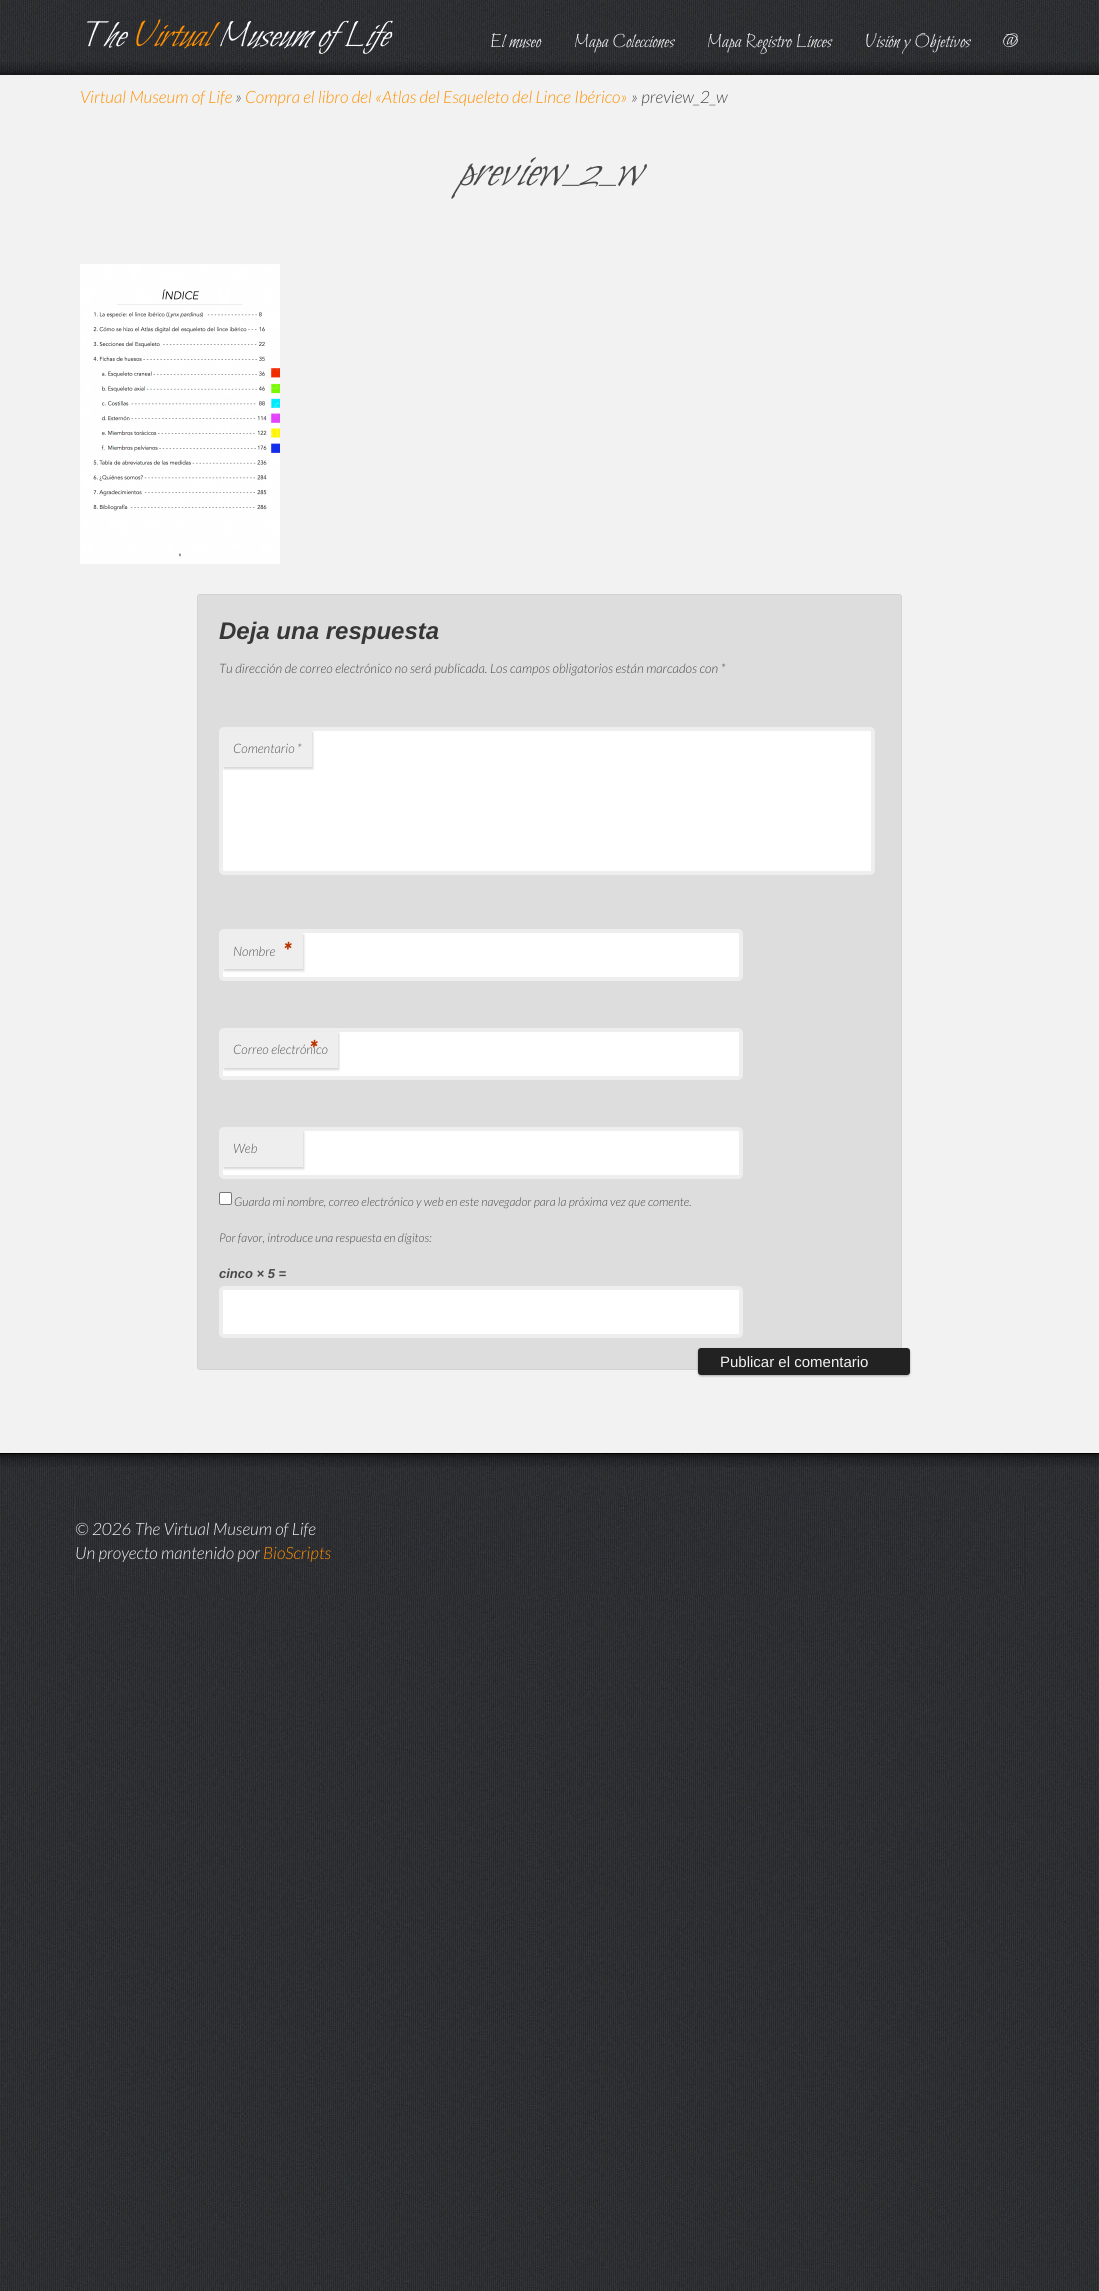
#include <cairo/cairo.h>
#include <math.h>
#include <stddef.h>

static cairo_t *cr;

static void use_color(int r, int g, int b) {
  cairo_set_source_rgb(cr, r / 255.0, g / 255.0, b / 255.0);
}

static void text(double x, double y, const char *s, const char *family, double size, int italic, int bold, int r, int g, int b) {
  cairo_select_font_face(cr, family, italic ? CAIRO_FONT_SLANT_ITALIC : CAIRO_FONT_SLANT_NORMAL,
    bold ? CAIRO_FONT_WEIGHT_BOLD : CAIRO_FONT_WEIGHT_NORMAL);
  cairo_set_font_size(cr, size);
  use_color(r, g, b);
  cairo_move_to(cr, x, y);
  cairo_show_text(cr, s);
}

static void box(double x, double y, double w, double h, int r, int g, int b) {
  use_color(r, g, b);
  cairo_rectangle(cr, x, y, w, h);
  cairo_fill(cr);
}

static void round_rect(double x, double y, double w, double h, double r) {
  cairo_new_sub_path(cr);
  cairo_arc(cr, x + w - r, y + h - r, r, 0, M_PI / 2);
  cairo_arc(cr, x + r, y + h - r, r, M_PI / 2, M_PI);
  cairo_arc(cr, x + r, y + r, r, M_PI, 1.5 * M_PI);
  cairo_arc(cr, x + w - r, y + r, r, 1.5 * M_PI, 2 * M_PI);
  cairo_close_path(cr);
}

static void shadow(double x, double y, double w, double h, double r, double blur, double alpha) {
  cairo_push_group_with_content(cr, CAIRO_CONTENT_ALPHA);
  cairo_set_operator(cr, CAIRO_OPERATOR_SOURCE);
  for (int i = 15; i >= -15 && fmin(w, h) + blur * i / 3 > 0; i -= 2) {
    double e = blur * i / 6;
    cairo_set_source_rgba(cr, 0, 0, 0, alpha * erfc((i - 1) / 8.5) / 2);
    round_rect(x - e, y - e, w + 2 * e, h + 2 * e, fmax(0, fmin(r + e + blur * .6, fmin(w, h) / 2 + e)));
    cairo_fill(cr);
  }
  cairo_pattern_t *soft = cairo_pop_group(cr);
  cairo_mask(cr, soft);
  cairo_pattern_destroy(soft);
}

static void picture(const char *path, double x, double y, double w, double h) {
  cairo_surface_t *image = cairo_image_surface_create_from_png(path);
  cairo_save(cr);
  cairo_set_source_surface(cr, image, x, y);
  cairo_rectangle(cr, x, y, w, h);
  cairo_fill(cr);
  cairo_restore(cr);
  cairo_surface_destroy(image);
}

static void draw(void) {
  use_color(255, 255, 255);
  cairo_paint(cr);
  picture("img_01.png", 0, 0, 1099, 2291);
  picture("img_02.png", 0, 62, 1099, 13);
  box(0, 75, 1099, 1378, 242, 242, 242);
  picture("img_03.png", 80, 264, 200, 300);
  use_color(221, 221, 221);
  round_rect(197.5, 594.5, 704, 775, 2.5);
  cairo_fill_preserve(cr);
  use_color(211, 211, 211);
  cairo_set_line_width(cr, 1);
  cairo_stroke(cr);
  use_color(255, 255, 255);
  round_rect(221, 729, 652, 144, 3);
  cairo_fill_preserve(cr);
  use_color(238, 238, 238);
  cairo_set_line_width(cr, 4);
  cairo_stroke(cr);
  use_color(204, 204, 204);
  shadow(224, 732, 89, 37, 0, 1, 0.8);
  box(223, 731, 89, 36, 238, 238, 238);
  use_color(255, 255, 255);
  round_rect(221, 931, 520, 48, 3);
  cairo_fill_preserve(cr);
  use_color(238, 238, 238);
  cairo_stroke(cr);
  use_color(204, 204, 204);
  shadow(224, 935, 80, 36, 0, 1, 0.8);
  box(223, 933, 80, 36, 238, 238, 238);
  use_color(255, 255, 255);
  round_rect(221, 1030, 520, 48, 3);
  cairo_fill_preserve(cr);
  use_color(238, 238, 238);
  cairo_stroke(cr);
  use_color(204, 204, 204);
  shadow(224, 1033, 115, 37, 0, 1, 0.8);
  box(223, 1032, 115, 36, 238, 238, 238);
  use_color(255, 255, 255);
  round_rect(221, 1129, 520, 48, 3);
  cairo_fill_preserve(cr);
  use_color(238, 238, 238);
  cairo_stroke(cr);
  use_color(204, 204, 204);
  shadow(224, 1132, 80, 37, 0, 1, 0.8);
  box(223, 1131, 80, 36, 238, 238, 238);
  use_color(255, 255, 255);
  round_rect(219.5, 1192.5, 12, 12, 1.5);
  cairo_fill_preserve(cr);
  use_color(118, 118, 118);
  cairo_set_line_width(cr, 1);
  cairo_stroke(cr);
  use_color(255, 255, 255);
  round_rect(221, 1288, 520, 48, 3);
  cairo_fill_preserve(cr);
  use_color(238, 238, 238);
  cairo_set_line_width(cr, 4);
  cairo_stroke(cr);
  use_color(0, 0, 0);
  shadow(698, 1349, 212, 27, 3, 1, 0.3);
  use_color(34, 34, 34);
  round_rect(698, 1348, 212, 27, 3);
  cairo_fill(cr);
  picture("img_04.png", 0, 1454, 1099, 42);
  box(0, 1453, 1099, 1, 0, 0, 0);
  picture("img_05.png", 0, 1454, 1099, 13);
  picture("img_06.png", 75, 1496, 950, 99);
  text(80, 46, "The", "Bilbo", 38, 1, 0, 255, 255, 255);
  text(132, 46, "Virtual", "Bilbo", 38, 1, 0, 255, 144, 0);
  text(218, 46, "Museum of Life", "Bilbo", 38, 1, 0, 255, 255, 255);
  text(490, 47, "El museo", "Bilbo", 20, 0, 0, 242, 242, 242);
  text(574, 47, "Mapa Colecciones", "Bilbo", 20, 0, 0, 242, 242, 242);
  text(707, 47, "Mapa Registro Linces", "Bilbo", 20, 0, 0, 242, 242, 242);
  text(865, 47, "Visión y Objetivos", "Bilbo", 20, 0, 0, 242, 242, 242);
  text(1003, 47, "@", "Bilbo", 20, 0, 0, 242, 242, 242);
  text(80, 103, "Virtual Museum of Life", "Lato Light", 17, 1, 0, 255, 144, 0);
  text(235, 103, "»", "Lato Light", 17, 1, 0, 72, 72, 72);
  text(245, 103, "Compra el libro del «Atlas del Esqueleto del Lince Ibérico»", "Lato Light", 17, 1, 0, 255, 144, 0);
  text(631, 103, "» preview_2_w", "Lato Light", 17, 1, 0, 72, 72, 72);
  text(458, 185, "preview_2_w", "Bilbo", 50, 1, 0, 72, 72, 72);
  text(219, 639, "Deja una respuesta", "Liberation Sans", 24, 1, 1, 55, 55, 55);
  text(219, 673, "Tu dirección de correo electrónico no será publicada. Los campos obligatorios están marcados con *", "Lato Light", 13, 1, 0, 72, 72, 72);
  text(233, 753, "Comentario *", "Lato Light", 13, 1, 0, 85, 85, 85);
  text(233, 956, "Nombre", "Lato Light", 13, 1, 0, 85, 85, 85);
  text(283, 959, "*", "Lato", 22, 1, 1, 189, 53, 0);
  text(233, 1054, "Correo electrónico", "Lato Light", 13, 1, 0, 85, 85, 85);
  text(309, 1057, "*", "Lato", 22, 1, 1, 189, 53, 0);
  text(233, 1153, "Web", "Lato Light", 13, 1, 0, 85, 85, 85);
  text(234, 1206, "Guarda mi nombre, correo electrónico y web en este navegador para la próxima vez que comente.", "Lato Light", 12, 1, 0, 72, 72, 72);
  text(219, 1242, "Por favor, introduce una respuesta en dígitos:", "Lato Light", 12, 1, 0, 72, 72, 72);
  text(219, 1278, "cinco × 5 =", "Liberation Sans", 13, 1, 1, 72, 72, 72);
  text(720, 1367, "Publicar el comentario", "Liberation Sans", 15, 0, 0, 242, 242, 242);
  text(75, 1535, "© 2026 The Virtual Museum of Life", "Lato Light", 17, 1, 0, 242, 242, 242);
  text(75, 1559, "Un proyecto mantenido por", "Lato Light", 17, 1, 0, 242, 242, 242);
  text(263, 1559, "BioScripts", "Lato Light", 17, 1, 0, 255, 144, 0);
}

int main(void) {
  cairo_surface_t *surface = cairo_image_surface_create(CAIRO_FORMAT_RGB24, 1099, 2291);
  cr = cairo_create(surface);
  cairo_font_options_t *options = cairo_font_options_create();
  cairo_font_options_set_hint_metrics(options, CAIRO_HINT_METRICS_OFF);
  cairo_font_options_set_hint_style(options, CAIRO_HINT_STYLE_NONE);
  cairo_set_font_options(cr, options);
  cairo_set_miter_limit(cr, 4);
  draw();
  cairo_surface_write_to_png(surface, "out.png");
  cairo_font_options_destroy(options);
  cairo_destroy(cr);
  cairo_surface_destroy(surface);
  return 0;
}
